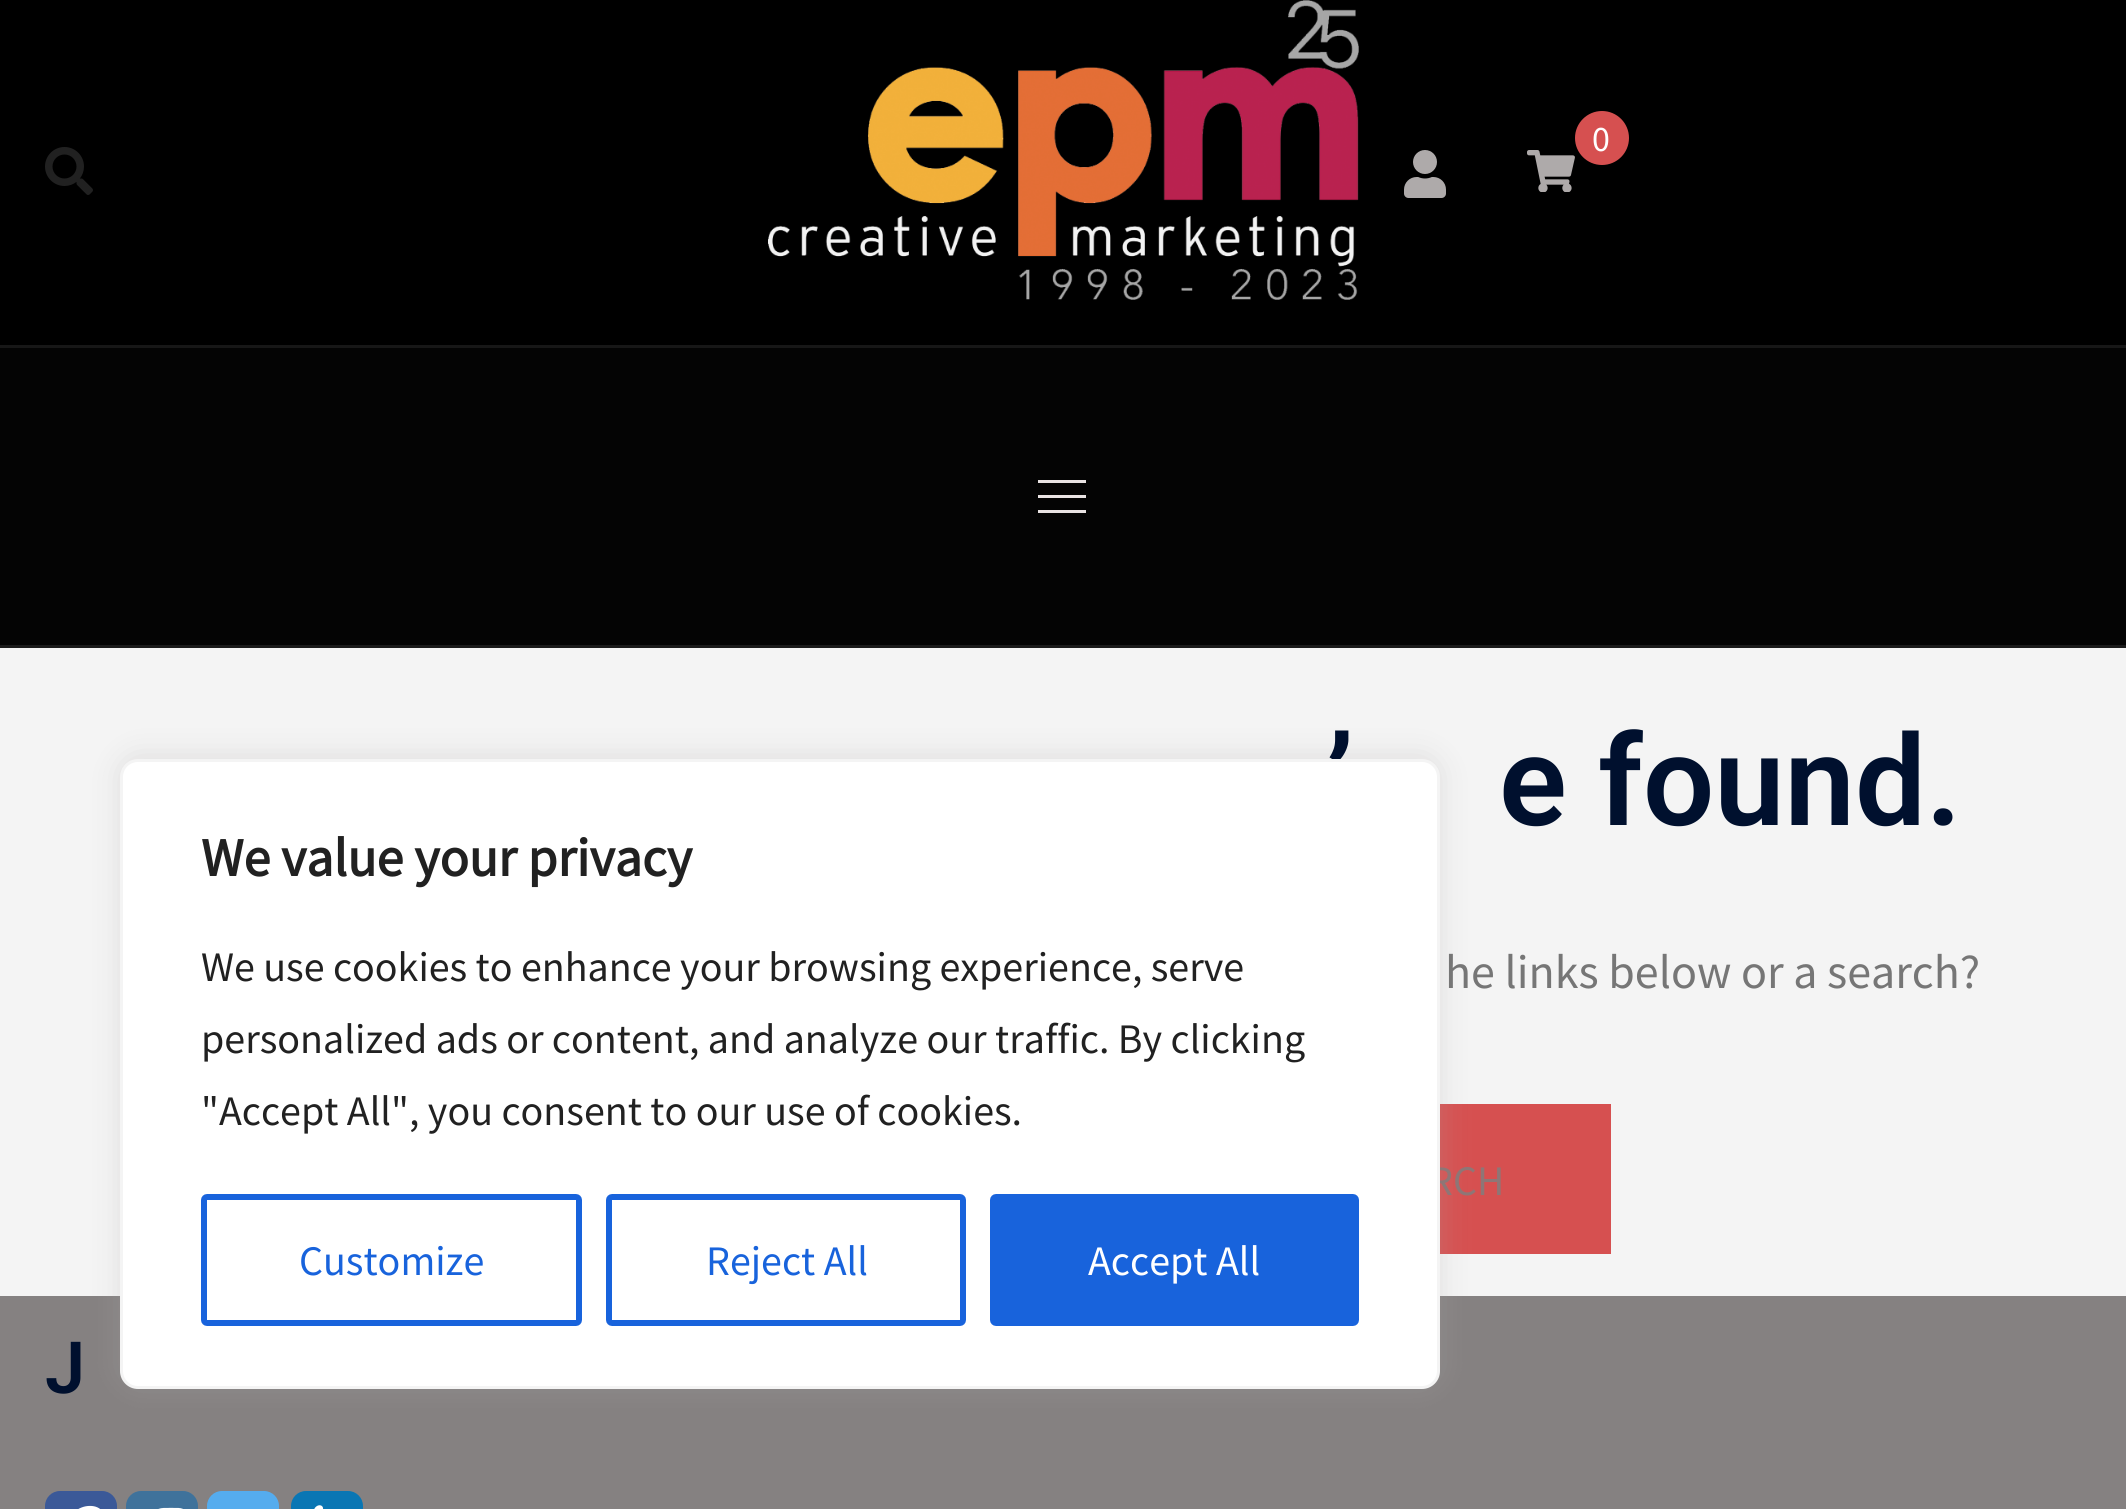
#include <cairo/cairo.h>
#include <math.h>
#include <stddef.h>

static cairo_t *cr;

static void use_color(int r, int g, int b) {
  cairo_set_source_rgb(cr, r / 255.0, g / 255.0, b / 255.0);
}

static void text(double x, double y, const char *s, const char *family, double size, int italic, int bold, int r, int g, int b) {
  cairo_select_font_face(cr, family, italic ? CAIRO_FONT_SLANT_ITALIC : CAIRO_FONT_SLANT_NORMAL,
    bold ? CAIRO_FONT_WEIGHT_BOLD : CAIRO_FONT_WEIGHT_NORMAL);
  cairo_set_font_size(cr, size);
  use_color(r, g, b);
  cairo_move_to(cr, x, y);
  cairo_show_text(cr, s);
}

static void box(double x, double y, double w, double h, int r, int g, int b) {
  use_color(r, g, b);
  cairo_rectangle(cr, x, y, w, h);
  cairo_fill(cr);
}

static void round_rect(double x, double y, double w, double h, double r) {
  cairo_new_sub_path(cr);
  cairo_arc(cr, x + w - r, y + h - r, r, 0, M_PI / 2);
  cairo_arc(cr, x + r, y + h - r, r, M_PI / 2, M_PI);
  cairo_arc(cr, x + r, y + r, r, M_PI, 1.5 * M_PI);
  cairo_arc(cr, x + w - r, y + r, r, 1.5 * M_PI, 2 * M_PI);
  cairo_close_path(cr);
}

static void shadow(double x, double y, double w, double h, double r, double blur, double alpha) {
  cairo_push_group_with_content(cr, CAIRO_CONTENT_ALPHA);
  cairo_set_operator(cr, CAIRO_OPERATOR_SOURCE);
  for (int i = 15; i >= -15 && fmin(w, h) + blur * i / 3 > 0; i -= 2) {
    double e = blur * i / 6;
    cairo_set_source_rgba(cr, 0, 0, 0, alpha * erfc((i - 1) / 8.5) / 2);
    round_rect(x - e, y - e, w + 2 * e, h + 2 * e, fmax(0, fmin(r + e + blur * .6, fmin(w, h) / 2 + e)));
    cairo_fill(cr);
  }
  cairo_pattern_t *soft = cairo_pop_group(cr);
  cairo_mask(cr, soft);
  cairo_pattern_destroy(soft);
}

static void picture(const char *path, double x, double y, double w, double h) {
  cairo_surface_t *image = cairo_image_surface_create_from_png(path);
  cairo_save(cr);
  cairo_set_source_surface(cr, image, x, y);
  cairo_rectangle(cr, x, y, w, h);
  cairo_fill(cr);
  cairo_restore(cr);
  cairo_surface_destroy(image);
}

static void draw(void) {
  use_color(244, 244, 244);
  cairo_paint(cr);
  box(0, 0, 2126, 345, 0, 0, 0);
  box(0, 345, 2126, 3, 23, 23, 23);
  picture("img_01.png", 768, 0, 591, 300);
  use_color(214, 80, 80);
  cairo_arc(cr, 1602, 138, 27, 0, 2 * M_PI);
  cairo_fill(cr);
  picture("img_02.png", 1527, 150, 48, 42);
  picture("img_03.png", 1404, 150, 42, 48);
  picture("img_04.png", 45, 147, 48, 48);
  box(0, 348, 2126, 297, 4, 4, 4);
  box(0, 645, 2126, 3, 27, 27, 27);
  box(1038, 480, 48, 3, 234, 228, 228);
  box(1038, 495, 48, 3, 234, 228, 228);
  box(1038, 510, 48, 3, 234, 228, 228);
  box(1440, 1104, 171, 150, 214, 80, 80);
  box(0, 1296, 2126, 213, 133, 129, 129);
  use_color(59, 89, 152);
  round_rect(45, 1491, 72, 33, 15);
  cairo_fill(cr);
  picture("img_05.png", 78, 1505, 22, 4);
  use_color(63, 114, 155);
  round_rect(126, 1491, 72, 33, 15);
  cairo_fill(cr);
  picture("img_06.png", 158, 1507, 25, 2);
  use_color(85, 172, 238);
  round_rect(207, 1491, 72, 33, 15);
  cairo_fill(cr);
  use_color(9, 118, 180);
  round_rect(291, 1491, 72, 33, 15);
  cairo_fill(cr);
  picture("img_07.png", 314, 1505, 10, 4);
  use_color(172, 171, 171);
  shadow(120, 756, 1320, 630, 18, 15, 0.3);
  text(1592, 151, "0", "Source Sans Pro", 36, 0, 0, 255, 255, 255);
  text(1326, 825, "’", "Roboto SemiBold", 126, 0, 0, 0, 16, 46);
  text(1499, 825, "e found.", "Roboto SemiBold", 126, 0, 0, 0, 16, 46);
  text(1445, 988, "he links below or a search?", "Source Sans Pro", 48, 0, 0, 118, 118, 118);
  text(1429, 1195, "RCH", "Source Sans Pro", 42, 0, 0, 142, 118, 118);
  text(45, 1393, "J", "Roboto SemiBold", 72, 0, 0, 0, 16, 46);
  use_color(255, 255, 255);
  round_rect(121.5, 760.5, 1317, 627, 16.5);
  cairo_fill_preserve(cr);
  use_color(244, 244, 244);
  cairo_set_line_width(cr, 3);
  cairo_stroke(cr);
  text(201, 876, "We value your privacy", "Source Sans Pro", 54, 0, 1, 33, 33, 33);
  text(201, 981, "We use cookies to enhance your browsing experience, serve", "Source Sans Pro", 42, 0, 0, 33, 33, 33);
  text(201, 1053, "personalized ads or content, and analyze our traffic. By clicking", "Source Sans Pro", 42, 0, 0, 33, 33, 33);
  text(201, 1125, "\"Accept All\", you consent to our use of cookies.", "Source Sans Pro", 42, 0, 0, 33, 33, 33);
  round_rect(204, 1197, 375, 126, 3);
  use_color(24, 99, 220);
  cairo_set_line_width(cr, 6);
  cairo_stroke(cr);
  text(299, 1275, "Customize", "Source Sans Pro", 42, 0, 0, 24, 99, 220);
  round_rect(609, 1197, 354, 126, 3);
  cairo_stroke(cr);
  text(706, 1275, "Reject All", "Source Sans Pro", 42, 0, 0, 24, 99, 220);
  round_rect(993, 1197, 363, 126, 3);
  cairo_fill_preserve(cr);
  cairo_stroke(cr);
  text(1088, 1275, "Accept All", "Source Sans Pro", 42, 0, 0, 255, 255, 255);
}

int main(void) {
  cairo_surface_t *surface = cairo_image_surface_create(CAIRO_FORMAT_RGB24, 2126, 1509);
  cr = cairo_create(surface);
  cairo_font_options_t *options = cairo_font_options_create();
  cairo_font_options_set_hint_metrics(options, CAIRO_HINT_METRICS_OFF);
  cairo_font_options_set_hint_style(options, CAIRO_HINT_STYLE_NONE);
  cairo_set_font_options(cr, options);
  cairo_set_miter_limit(cr, 4);
  draw();
  cairo_surface_write_to_png(surface, "out.png");
  cairo_font_options_destroy(options);
  cairo_destroy(cr);
  cairo_surface_destroy(surface);
  return 0;
}
